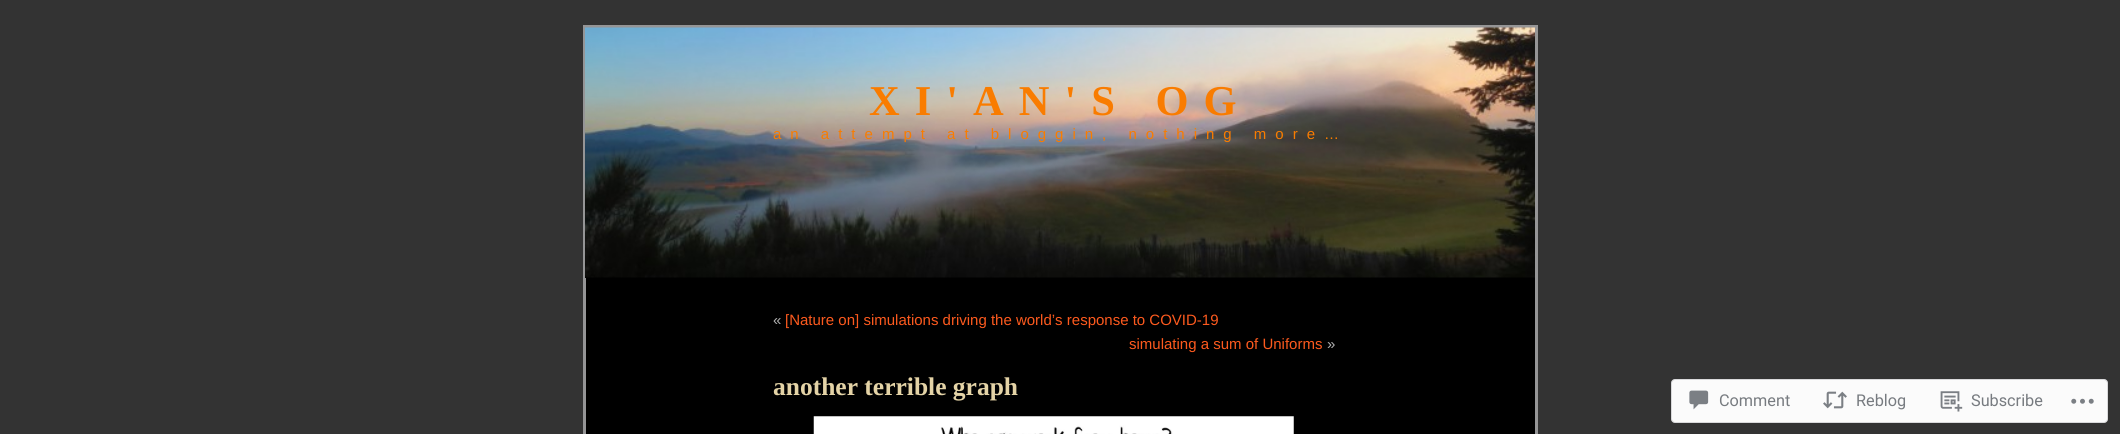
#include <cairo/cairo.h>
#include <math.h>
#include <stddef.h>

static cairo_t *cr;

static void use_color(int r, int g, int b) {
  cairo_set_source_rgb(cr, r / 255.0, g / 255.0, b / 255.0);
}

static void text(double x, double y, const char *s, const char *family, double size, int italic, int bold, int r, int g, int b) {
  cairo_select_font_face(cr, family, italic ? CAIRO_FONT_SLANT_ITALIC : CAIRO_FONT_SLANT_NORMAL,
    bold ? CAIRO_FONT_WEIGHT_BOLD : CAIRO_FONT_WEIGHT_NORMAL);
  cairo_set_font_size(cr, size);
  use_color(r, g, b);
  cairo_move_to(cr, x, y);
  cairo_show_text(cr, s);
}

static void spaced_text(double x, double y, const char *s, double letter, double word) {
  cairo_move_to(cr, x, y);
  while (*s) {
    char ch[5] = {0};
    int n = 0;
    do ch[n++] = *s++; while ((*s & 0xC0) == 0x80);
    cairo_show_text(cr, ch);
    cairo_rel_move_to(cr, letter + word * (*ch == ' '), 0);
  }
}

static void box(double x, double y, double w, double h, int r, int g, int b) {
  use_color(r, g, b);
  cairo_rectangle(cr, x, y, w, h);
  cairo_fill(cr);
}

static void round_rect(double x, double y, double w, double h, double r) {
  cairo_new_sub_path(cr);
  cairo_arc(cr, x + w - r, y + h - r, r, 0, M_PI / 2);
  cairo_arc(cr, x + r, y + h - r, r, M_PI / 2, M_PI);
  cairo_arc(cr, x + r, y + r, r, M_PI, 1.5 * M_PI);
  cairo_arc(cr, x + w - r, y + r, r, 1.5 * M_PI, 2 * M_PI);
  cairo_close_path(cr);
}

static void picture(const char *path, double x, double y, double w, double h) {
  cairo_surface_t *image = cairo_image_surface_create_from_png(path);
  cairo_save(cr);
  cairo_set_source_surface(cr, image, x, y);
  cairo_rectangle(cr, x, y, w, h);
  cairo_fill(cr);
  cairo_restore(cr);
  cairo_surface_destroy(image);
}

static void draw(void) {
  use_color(51, 51, 51);
  cairo_paint(cr);
  box(586, 278, 949, 156, 0, 0, 0);
  cairo_rectangle(cr, 584.5, 26.5, 952, 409);
  use_color(149, 149, 150);
  cairo_set_line_width(cr, 3);
  cairo_stroke(cr);
  box(585, 277, 950, 1, 0, 0, 0);
  picture("img_01.png", 585, 27, 950, 251);
  picture("img_02.png", 813, 416, 481, 18);
  use_color(251, 251, 251);
  round_rect(1671.5, 379.5, 436, 43, 3.5);
  cairo_fill_preserve(cr);
  use_color(217, 217, 219);
  cairo_set_line_width(cr, 1);
  cairo_stroke(cr);
  picture("img_03.png", 1689, 390, 20, 20);
  picture("img_04.png", 1823, 391, 24, 18);
  picture("img_05.png", 1940, 391, 23, 21);
  picture("img_06.png", 2071, 398, 23, 6);
  cairo_select_font_face(cr, "Liberation Serif", CAIRO_FONT_SLANT_NORMAL, CAIRO_FONT_WEIGHT_BOLD);
  cairo_set_font_size(cr, 42.5);
  use_color(249, 124, 0);
  spaced_text(869, 115, "XI'AN'S OG", 15, 0);
  cairo_select_font_face(cr, "Liberation Sans", CAIRO_FONT_SLANT_NORMAL, CAIRO_FONT_WEIGHT_NORMAL);
  cairo_set_font_size(cr, 15);
  spaced_text(773, 139, "an attempt at bloggin, nothing more…", 9, 0);
  text(773, 325, "«", "Liberation Sans", 15, 0, 0, 176, 176, 176);
  text(785, 325, "[Nature on] simulations driving the world’s response to COVID-19", "Liberation Sans", 15, 0, 0, 253, 90, 30);
  text(1129, 349, "simulating a sum of Uniforms", "Liberation Sans", 15, 0, 0, 253, 90, 30);
  text(1327, 349, "»", "Liberation Sans", 15, 0, 0, 176, 176, 176);
  text(773, 395, "another terrible graph", "Liberation Serif", 25.5, 0, 1, 228, 211, 166);
  text(1719, 406, "Comment", "Roboto", 16.25, 0, 0, 119, 123, 128);
  text(1856, 406, "Reblog", "Roboto", 16.25, 0, 0, 119, 123, 128);
  text(1971, 406, "Subscribe", "Roboto", 16.25, 0, 0, 119, 123, 128);
}

int main(void) {
  cairo_surface_t *surface = cairo_image_surface_create(CAIRO_FORMAT_RGB24, 2120, 434);
  cr = cairo_create(surface);
  cairo_font_options_t *options = cairo_font_options_create();
  cairo_font_options_set_hint_metrics(options, CAIRO_HINT_METRICS_OFF);
  cairo_font_options_set_hint_style(options, CAIRO_HINT_STYLE_NONE);
  cairo_set_font_options(cr, options);
  cairo_set_miter_limit(cr, 4);
  draw();
  cairo_surface_write_to_png(surface, "out.png");
  cairo_font_options_destroy(options);
  cairo_destroy(cr);
  cairo_surface_destroy(surface);
  return 0;
}
